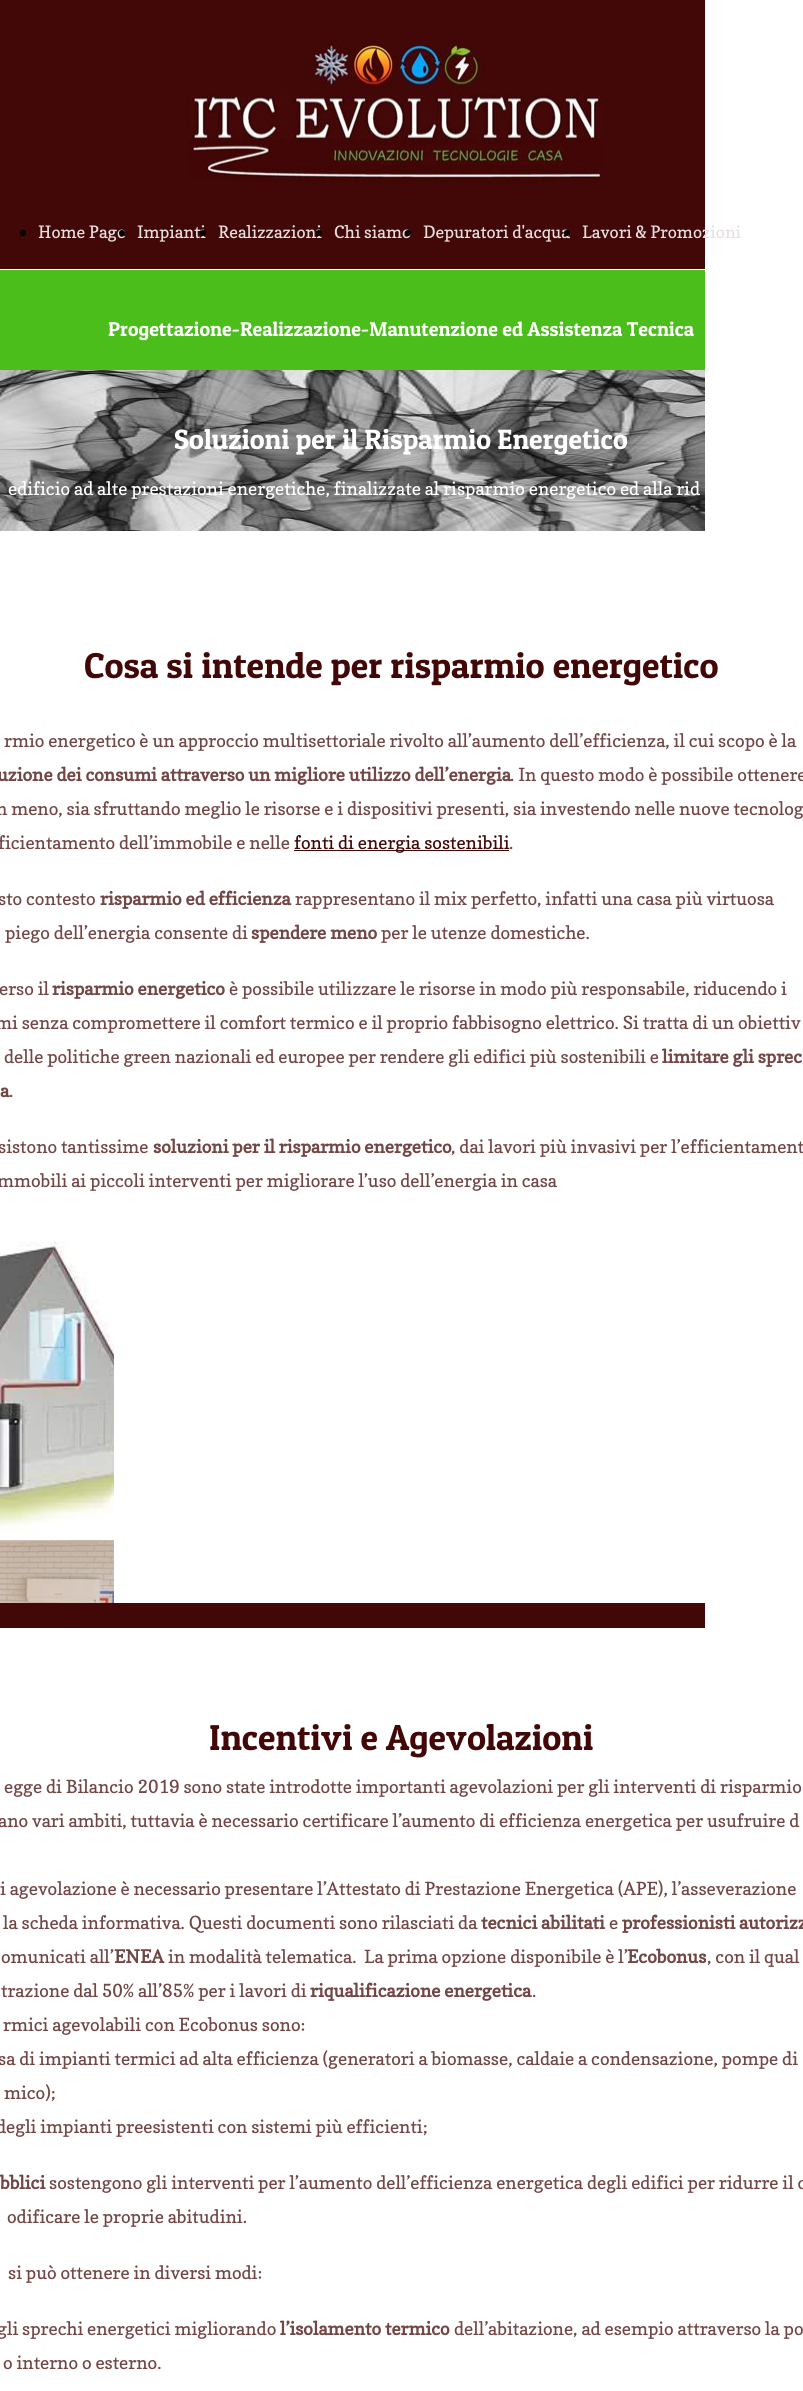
#include <cairo/cairo.h>
#include <math.h>
#include <stddef.h>

static cairo_t *cr;

static void use_color(int r, int g, int b) {
  cairo_set_source_rgb(cr, r / 255.0, g / 255.0, b / 255.0);
}

static void text(double x, double y, const char *s, const char *family, double size, int italic, int bold, int r, int g, int b) {
  cairo_select_font_face(cr, family, italic ? CAIRO_FONT_SLANT_ITALIC : CAIRO_FONT_SLANT_NORMAL,
    bold ? CAIRO_FONT_WEIGHT_BOLD : CAIRO_FONT_WEIGHT_NORMAL);
  cairo_set_font_size(cr, size);
  use_color(r, g, b);
  cairo_move_to(cr, x, y);
  cairo_show_text(cr, s);
}

static void box(double x, double y, double w, double h, int r, int g, int b) {
  use_color(r, g, b);
  cairo_rectangle(cr, x, y, w, h);
  cairo_fill(cr);
}

static void picture(const char *path, double x, double y, double w, double h) {
  cairo_surface_t *image = cairo_image_surface_create_from_png(path);
  cairo_save(cr);
  cairo_set_source_surface(cr, image, x, y);
  cairo_rectangle(cr, x, y, w, h);
  cairo_fill(cr);
  cairo_restore(cr);
  cairo_surface_destroy(image);
}

static void draw(void) {
  use_color(255, 255, 255);
  cairo_paint(cr);
  box(0, 0, 705, 269, 66, 8, 7);
  picture("img_01.png", 187, 40, 416, 151);
  use_color(0, 0, 0);
  cairo_arc(cr, 23, 233, 3, 0, 2 * M_PI);
  cairo_fill(cr);
  box(0, 270, 705, 100, 75, 190, 28);
  picture("img_02.png", 0, 370, 705, 161);
  box(294, 850, 215, 1, 66, 8, 7);
  picture("img_03.png", 0, 1242, 114, 293);
  picture("img_04.png", 0, 1540, 114, 63);
  box(0, 1603, 705, 25, 66, 8, 7);
  text(38, 238, "Home Page", "Copse", 17, 0, 0, 231, 224, 224);
  use_color(0, 0, 0);
  cairo_new_path(cr);
  cairo_arc(cr, 122, 233, 3, 0, 2 * M_PI);
  cairo_fill(cr);
  text(137, 238, "Impianti", "Copse", 17, 0, 0, 231, 224, 224);
  use_color(0, 0, 0);
  cairo_new_path(cr);
  cairo_arc(cr, 203, 233, 3, 0, 2 * M_PI);
  cairo_fill(cr);
  text(218, 238, "Realizzazioni", "Copse", 17, 0, 0, 231, 224, 224);
  use_color(0, 0, 0);
  cairo_new_path(cr);
  cairo_arc(cr, 319, 233, 3, 0, 2 * M_PI);
  cairo_fill(cr);
  text(334, 238, "Chi siamo", "Copse", 17, 0, 0, 231, 224, 224);
  use_color(0, 0, 0);
  cairo_new_path(cr);
  cairo_arc(cr, 408, 233, 3, 0, 2 * M_PI);
  cairo_fill(cr);
  text(423, 238, "Depuratori d'acqua", "Copse", 17, 0, 0, 231, 224, 224);
  use_color(0, 0, 0);
  cairo_new_path(cr);
  cairo_arc(cr, 567, 233, 3, 0, 2 * M_PI);
  cairo_fill(cr);
  text(582, 238, "Lavori & Promozioni", "Copse", 17, 0, 0, 231, 224, 224);
  text(108, 336, "Progettazione-Realizzazione-Manutenzione ed Assistenza Tecnica", "Patua One", 20, 0, 0, 255, 255, 255);
  text(174, 449, "Soluzioni per il Risparmio Energetico", "Patua One", 28, 0, 0, 255, 255, 255);
  text(8, 495, "edificio ad alte prestazioni energetiche, finalizzate al risparmio energetico ed alla rid", "Copse", 18, 0, 0, 255, 255, 255);
  text(84, 678, "Cosa si intende per risparmio energetico", "Patua One", 36, 0, 0, 66, 8, 7);
  text(4, 747, "rmio energetico è un approccio multisettoriale rivolto all’aumento dell’efficienza, il cui scopo è la", "Copse", 18, 0, 0, 113, 70, 69);
  text(-3, 781, "uzione dei consumi attraverso un migliore utilizzo dell’energia", "Copse", 18, 0, 1, 113, 70, 69);
  text(510, 781, ". In questo modo è possibile ottenere", "Copse", 18, 0, 0, 113, 70, 69);
  text(-4, 815, "n meno, sia sfruttando meglio le risorse e i dispositivi presenti, sia investendo nelle nuove tecnolog", "Copse", 18, 0, 0, 113, 70, 69);
  text(-2, 849, "ficientamento dell’immobile e nelle", "Copse", 18, 0, 0, 113, 70, 69);
  text(294, 849, "fonti di energia sostenibili", "Copse", 18, 0, 0, 66, 8, 7);
  text(509, 849, ".", "Copse", 18, 0, 0, 113, 70, 69);
  text(-2, 905, "sto contesto", "Copse", 18, 0, 0, 113, 70, 69);
  text(100, 905, "risparmio ed efficienza", "Copse", 18, 0, 1, 113, 70, 69);
  text(295, 905, "rappresentano il mix perfetto, infatti una casa più virtuosa", "Copse", 18, 0, 0, 113, 70, 69);
  text(5, 939, "piego dell’energia consente di", "Copse", 18, 0, 0, 113, 70, 69);
  text(251, 939, "spendere meno", "Copse", 18, 0, 1, 113, 70, 69);
  text(381, 939, "per le utenze domestiche.", "Copse", 18, 0, 0, 113, 70, 69);
  text(-1, 995, "erso il", "Copse", 18, 0, 0, 113, 70, 69);
  text(52, 995, "risparmio energetico", "Copse", 18, 0, 1, 113, 70, 69);
  text(229, 995, "è possibile utilizzare le risorse in modo più responsabile, riducendo i", "Copse", 18, 0, 0, 113, 70, 69);
  text(-5, 1029, "mi senza compromettere il comfort termico e il proprio fabbisogno elettrico. Si tratta di un obiettiv", "Copse", 18, 0, 0, 113, 70, 69);
  text(4, 1063, "delle politiche green nazionali ed europee per rendere gli edifici più sostenibili e", "Copse", 18, 0, 0, 113, 70, 69);
  text(662, 1063, "limitare gli sprec", "Copse", 18, 0, 1, 113, 70, 69);
  text(0, 1097, "a", "Copse", 18, 0, 1, 113, 70, 69);
  text(9, 1097, ".", "Copse", 18, 0, 0, 113, 70, 69);
  text(-2, 1153, "sistono tantissime", "Copse", 18, 0, 0, 113, 70, 69);
  text(153, 1153, "soluzioni per il risparmio energetico", "Copse", 18, 0, 1, 113, 70, 69);
  text(451, 1153, ", dai lavori più invasivi per l’efficientament", "Copse", 18, 0, 0, 113, 70, 69);
  text(-3, 1187, "mmobili ai piccoli interventi per migliorare l’uso dell’energia in casa", "Copse", 18, 0, 0, 113, 70, 69);
  text(209, 1750, "Incentivi e Agevolazioni", "Patua One", 36, 0, 0, 66, 8, 7);
  text(4, 1793, "egge di Bilancio 2019 sono state introdotte importanti agevolazioni per gli interventi di risparmio", "Copse", 18, 0, 0, 113, 70, 69);
  text(-2, 1827, "ano vari ambiti, tuttavia è necessario certificare l’aumento di efficienza energetica per usufruire d", "Copse", 18, 0, 0, 113, 70, 69);
  text(0, 1895, "i agevolazione è necessario presentare l’Attestato di Prestazione Energetica (APE), l’asseverazione", "Copse", 18, 0, 0, 113, 70, 69);
  text(3, 1929, "la scheda informativa. Questi documenti sono rilasciati da", "Copse", 18, 0, 0, 113, 70, 69);
  text(481, 1929, "tecnici abilitati", "Copse", 18, 0, 1, 113, 70, 69);
  text(609, 1929, "e", "Copse", 18, 0, 0, 113, 70, 69);
  text(622, 1929, "professionisti autorizz", "Copse", 18, 0, 1, 113, 70, 69);
  text(1, 1963, "omunicati all’", "Copse", 18, 0, 0, 113, 70, 69);
  text(114, 1963, "ENEA", "Copse", 18, 0, 1, 113, 70, 69);
  text(168, 1963, "in modalità telematica.", "Copse", 18, 0, 0, 113, 70, 69);
  text(364, 1963, "La prima opzione disponibile è l’", "Copse", 18, 0, 0, 113, 70, 69);
  text(627, 1963, "Ecobonus", "Copse", 18, 0, 1, 113, 70, 69);
  text(707, 1963, ", con il qual", "Copse", 18, 0, 0, 113, 70, 69);
  text(1, 1997, "trazione dal 50% all’85% per i lavori di", "Copse", 18, 0, 0, 113, 70, 69);
  text(310, 1997, "riqualificazione energetica", "Copse", 18, 0, 1, 113, 70, 69);
  text(532, 1997, ".", "Copse", 18, 0, 0, 113, 70, 69);
  text(3, 2031, "rmici agevolabili con Ecobonus sono:", "Copse", 18, 0, 0, 113, 70, 69);
  text(-2, 2065, "sa di impianti termici ad alta efficienza (generatori a biomasse, caldaie a condensazione, pompe di", "Copse", 18, 0, 0, 113, 70, 69);
  text(4, 2099, "mico);", "Copse", 18, 0, 0, 113, 70, 69);
  text(-4, 2133, "degli impianti preesistenti con sistemi più efficienti;", "Copse", 18, 0, 0, 113, 70, 69);
  text(0, 2189, "bblici", "Copse", 18, 0, 1, 113, 70, 69);
  text(49, 2189, "sostengono gli interventi per l’aumento dell’efficienza energetica degli edifici per ridurre il c", "Copse", 18, 0, 0, 113, 70, 69);
  text(7, 2223, "odificare le proprie abitudini.", "Copse", 18, 0, 0, 113, 70, 69);
  text(8, 2279, "si può ottenere in diversi modi:", "Copse", 18, 0, 0, 113, 70, 69);
  text(-3, 2335, "gli sprechi energetici migliorando", "Copse", 18, 0, 0, 113, 70, 69);
  text(280, 2335, "l’isolamento termico", "Copse", 18, 0, 1, 113, 70, 69);
  text(454, 2335, "dell’abitazione, ad esempio attraverso la po", "Copse", 18, 0, 0, 113, 70, 69);
  text(3, 2369, "o interno o esterno.", "Copse", 18, 0, 0, 113, 70, 69);
}

int main(void) {
  cairo_surface_t *surface = cairo_image_surface_create(CAIRO_FORMAT_RGB24, 803, 2391);
  cr = cairo_create(surface);
  cairo_font_options_t *options = cairo_font_options_create();
  cairo_font_options_set_hint_metrics(options, CAIRO_HINT_METRICS_OFF);
  cairo_font_options_set_hint_style(options, CAIRO_HINT_STYLE_NONE);
  cairo_set_font_options(cr, options);
  cairo_set_miter_limit(cr, 4);
  draw();
  cairo_surface_write_to_png(surface, "out.png");
  cairo_font_options_destroy(options);
  cairo_destroy(cr);
  cairo_surface_destroy(surface);
  return 0;
}
